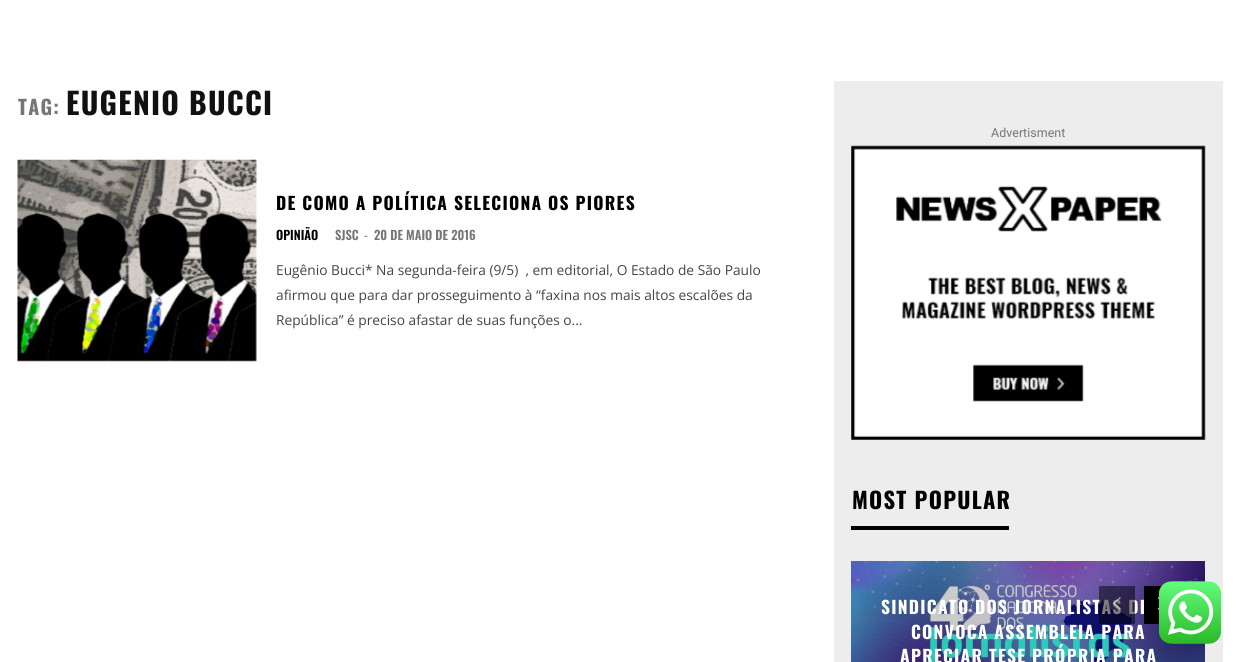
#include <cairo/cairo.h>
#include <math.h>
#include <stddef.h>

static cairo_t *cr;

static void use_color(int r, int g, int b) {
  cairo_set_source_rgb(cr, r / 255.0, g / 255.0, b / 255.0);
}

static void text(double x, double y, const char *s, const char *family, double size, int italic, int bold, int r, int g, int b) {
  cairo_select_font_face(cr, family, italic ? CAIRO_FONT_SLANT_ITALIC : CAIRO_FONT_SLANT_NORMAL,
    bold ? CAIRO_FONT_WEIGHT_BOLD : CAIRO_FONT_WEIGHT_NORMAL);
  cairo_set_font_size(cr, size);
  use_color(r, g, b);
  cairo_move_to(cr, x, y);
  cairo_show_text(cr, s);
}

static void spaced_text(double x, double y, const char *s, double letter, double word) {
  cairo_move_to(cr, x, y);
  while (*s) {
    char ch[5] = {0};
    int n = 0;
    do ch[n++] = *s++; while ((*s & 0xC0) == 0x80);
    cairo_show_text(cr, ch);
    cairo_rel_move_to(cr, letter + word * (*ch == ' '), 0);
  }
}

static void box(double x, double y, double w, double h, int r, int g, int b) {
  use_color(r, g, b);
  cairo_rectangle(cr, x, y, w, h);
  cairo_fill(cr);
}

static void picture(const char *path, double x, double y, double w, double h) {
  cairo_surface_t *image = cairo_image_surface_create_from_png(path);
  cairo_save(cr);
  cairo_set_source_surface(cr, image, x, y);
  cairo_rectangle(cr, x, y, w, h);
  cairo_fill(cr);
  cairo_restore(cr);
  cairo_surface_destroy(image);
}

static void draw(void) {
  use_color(255, 255, 255);
  cairo_paint(cr);
  picture("img_01.png", 17, 159, 240, 203);
  box(834, 81, 389, 581, 237, 237, 237);
  picture("img_02.png", 851, 145, 355, 295);
  box(851, 526, 158, 4, 0, 0, 0);
  picture("img_05.png", 851, 561, 354, 101);
  cairo_select_font_face(cr, "Oswald", CAIRO_FONT_SLANT_NORMAL, CAIRO_FONT_WEIGHT_BOLD);
  cairo_set_font_size(cr, 20);
  use_color(118, 118, 118);
  spaced_text(18, 115, "TAG:", 1.25, 0);
  cairo_set_font_size(cr, 30);
  use_color(17, 17, 17);
  spaced_text(66, 115, "EUGENIO BUCCI", 1.25, 0);
  cairo_set_font_size(cr, 17.5);
  use_color(0, 0, 0);
  spaced_text(276, 210, "DE COMO A POLÍTICA SELECIONA OS PIORES", 1.25, 0);
  text(276, 240, "OPINIÃO", "Oswald SemiBold", 12.5, 0, 0, 0, 0, 0);
  text(335, 240, "SJSC", "Oswald SemiBold", 12.5, 0, 0, 118, 118, 118);
  text(364, 240, "-", "Oswald", 12.5, 0, 0, 118, 118, 118);
  text(374, 240, "20 DE MAIO DE 2016", "Oswald SemiBold", 12.5, 0, 0, 118, 118, 118);
  text(276, 275, "Eugênio Bucci* Na segunda-feira (9/5)  , em editorial, O Estado de São Paulo", "Open Sans", 13.75, 0, 0, 68, 68, 68);
  text(276, 300, "afirmou que para dar prosseguimento à “faxina nos mais altos escalões da", "Open Sans", 13.75, 0, 0, 68, 68, 68);
  text(276, 325, "República” é preciso afastar de suas funções o...", "Open Sans", 13.75, 0, 0, 68, 68, 68);
  text(991, 137, "Advertisment", "Roboto", 12.5, 0, 0, 118, 118, 118);
  cairo_select_font_face(cr, "Oswald", CAIRO_FONT_SLANT_NORMAL, CAIRO_FONT_WEIGHT_BOLD);
  cairo_set_font_size(cr, 22.5);
  use_color(0, 0, 0);
  spaced_text(852, 509, "MOST POPULAR", 1.25, 0);
  cairo_set_font_size(cr, 17.5);
  use_color(255, 255, 255);
  spaced_text(881, 614, "SINDICATO DOS JORNALISTAS DE", 1.25, 0);
  cairo_set_source_rgba(cr, 0, 0, 0, 0.5);
  cairo_rectangle(cr, 1099, 586, 36, 38);
  cairo_fill(cr);
  picture("img_03.png", 1112, 597, 9, 13);
  box(1144, 586, 18, 38, 0, 0, 0);
  picture("img_04.png", 1158, 597, 1, 13);
  use_color(255, 255, 255);
  spaced_text(911, 639, "CONVOCA ASSEMBLEIA PARA", 1.25, 0);
  spaced_text(900, 663, "APRECIAR TESE PRÓPRIA PARA", 1.25, 0);
  picture("img_06.png", 1159, 581, 62, 63);
}

int main(void) {
  cairo_surface_t *surface = cairo_image_surface_create(CAIRO_FORMAT_RGB24, 1240, 662);
  cr = cairo_create(surface);
  cairo_font_options_t *options = cairo_font_options_create();
  cairo_font_options_set_hint_metrics(options, CAIRO_HINT_METRICS_OFF);
  cairo_font_options_set_hint_style(options, CAIRO_HINT_STYLE_NONE);
  cairo_set_font_options(cr, options);
  cairo_set_miter_limit(cr, 4);
  draw();
  cairo_surface_write_to_png(surface, "out.png");
  cairo_font_options_destroy(options);
  cairo_destroy(cr);
  cairo_surface_destroy(surface);
  return 0;
}
